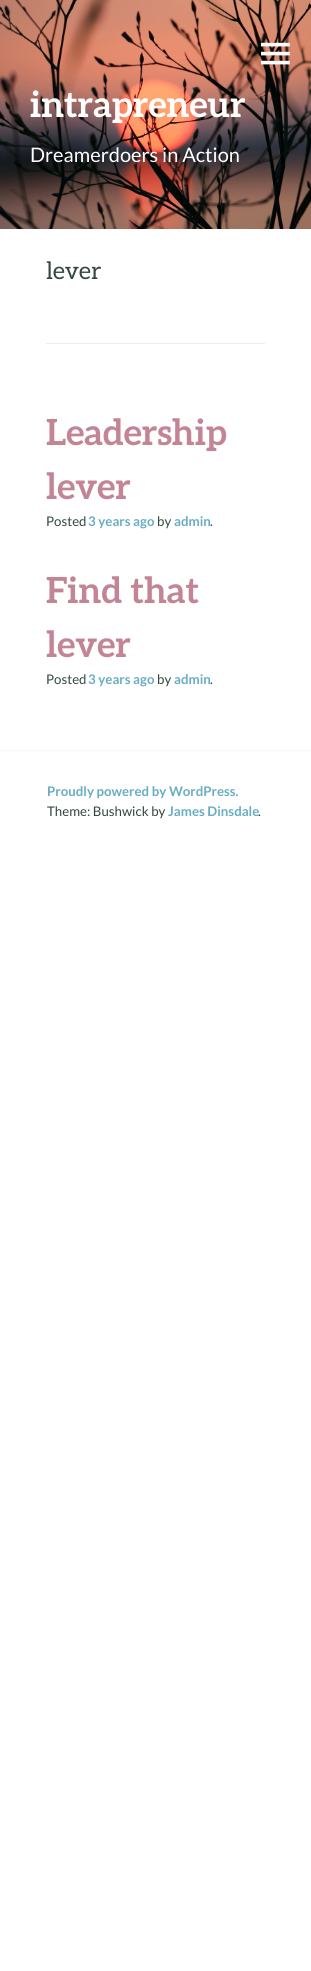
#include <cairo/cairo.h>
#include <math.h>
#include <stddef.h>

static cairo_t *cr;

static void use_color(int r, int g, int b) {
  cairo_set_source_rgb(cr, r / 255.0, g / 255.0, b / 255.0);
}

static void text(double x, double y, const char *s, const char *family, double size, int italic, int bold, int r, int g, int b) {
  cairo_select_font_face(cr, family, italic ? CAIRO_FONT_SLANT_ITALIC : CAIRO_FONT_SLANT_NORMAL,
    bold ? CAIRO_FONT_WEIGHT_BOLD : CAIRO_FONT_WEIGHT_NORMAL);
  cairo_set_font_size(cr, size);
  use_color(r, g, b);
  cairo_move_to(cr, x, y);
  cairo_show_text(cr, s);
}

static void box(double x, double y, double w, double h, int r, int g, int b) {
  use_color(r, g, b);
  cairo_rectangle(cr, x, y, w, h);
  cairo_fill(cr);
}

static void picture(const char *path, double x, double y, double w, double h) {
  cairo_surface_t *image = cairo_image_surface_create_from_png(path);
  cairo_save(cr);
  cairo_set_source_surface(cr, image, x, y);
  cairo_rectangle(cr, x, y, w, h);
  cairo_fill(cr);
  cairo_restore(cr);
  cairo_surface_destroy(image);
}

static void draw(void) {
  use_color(255, 255, 255);
  cairo_paint(cr);
  picture("img_01.png", 0, 0, 311, 229);
  picture("img_02.png", 261, 42, 29, 23);
  box(46, 343, 219, 1, 235, 237, 236);
  box(0, 750, 311, 1, 245, 246, 245);
  text(30, 117, "intrapreneur", "Aleo", 36, 0, 1, 255, 255, 255);
  text(30, 162, "Dreamerdoers in Action", "Lato", 20, 0, 0, 255, 255, 255);
  text(46, 279, "lever", "Aleo", 24, 0, 0, 51, 71, 61);
  text(46, 445, "Leadership", "Aleo", 36, 0, 1, 195, 133, 150);
  text(46, 499, "lever", "Aleo", 36, 0, 1, 195, 133, 150);
  text(46, 526, "Posted", "Lato", 13.25, 0, 0, 51, 71, 61);
  text(88, 526, "3 years ago", "Lato", 13.25, 0, 1, 104, 173, 195);
  text(157, 526, "by", "Lato", 13.25, 0, 0, 51, 71, 61);
  text(174, 526, "admin", "Lato", 13.25, 0, 1, 104, 173, 195);
  text(210, 526, ".", "Lato", 13.25, 0, 0, 51, 71, 61);
  text(46, 603, "Find that", "Aleo", 36, 0, 1, 195, 133, 150);
  text(46, 657, "lever", "Aleo", 36, 0, 1, 195, 133, 150);
  text(46, 684, "Posted", "Lato", 13.25, 0, 0, 51, 71, 61);
  text(88, 684, "3 years ago", "Lato", 13.25, 0, 1, 104, 173, 195);
  text(157, 684, "by", "Lato", 13.25, 0, 0, 51, 71, 61);
  text(174, 684, "admin", "Lato", 13.25, 0, 1, 104, 173, 195);
  text(210, 684, ".", "Lato", 13.25, 0, 0, 51, 71, 61);
  text(47, 796, "Proudly powered by WordPress.", "Lato", 13.25, 0, 1, 104, 173, 195);
  text(47, 816, "Theme: Bushwick by", "Lato", 13.25, 0, 0, 51, 71, 61);
  text(168, 816, "James Dinsdale", "Lato", 13.25, 0, 1, 104, 173, 195);
  text(258, 816, ".", "Lato", 13.25, 0, 0, 51, 71, 61);
}

int main(void) {
  cairo_surface_t *surface = cairo_image_surface_create(CAIRO_FORMAT_RGB24, 311, 1971);
  cr = cairo_create(surface);
  cairo_font_options_t *options = cairo_font_options_create();
  cairo_font_options_set_hint_metrics(options, CAIRO_HINT_METRICS_OFF);
  cairo_font_options_set_hint_style(options, CAIRO_HINT_STYLE_NONE);
  cairo_set_font_options(cr, options);
  cairo_set_miter_limit(cr, 4);
  draw();
  cairo_surface_write_to_png(surface, "out.png");
  cairo_font_options_destroy(options);
  cairo_destroy(cr);
  cairo_surface_destroy(surface);
  return 0;
}
